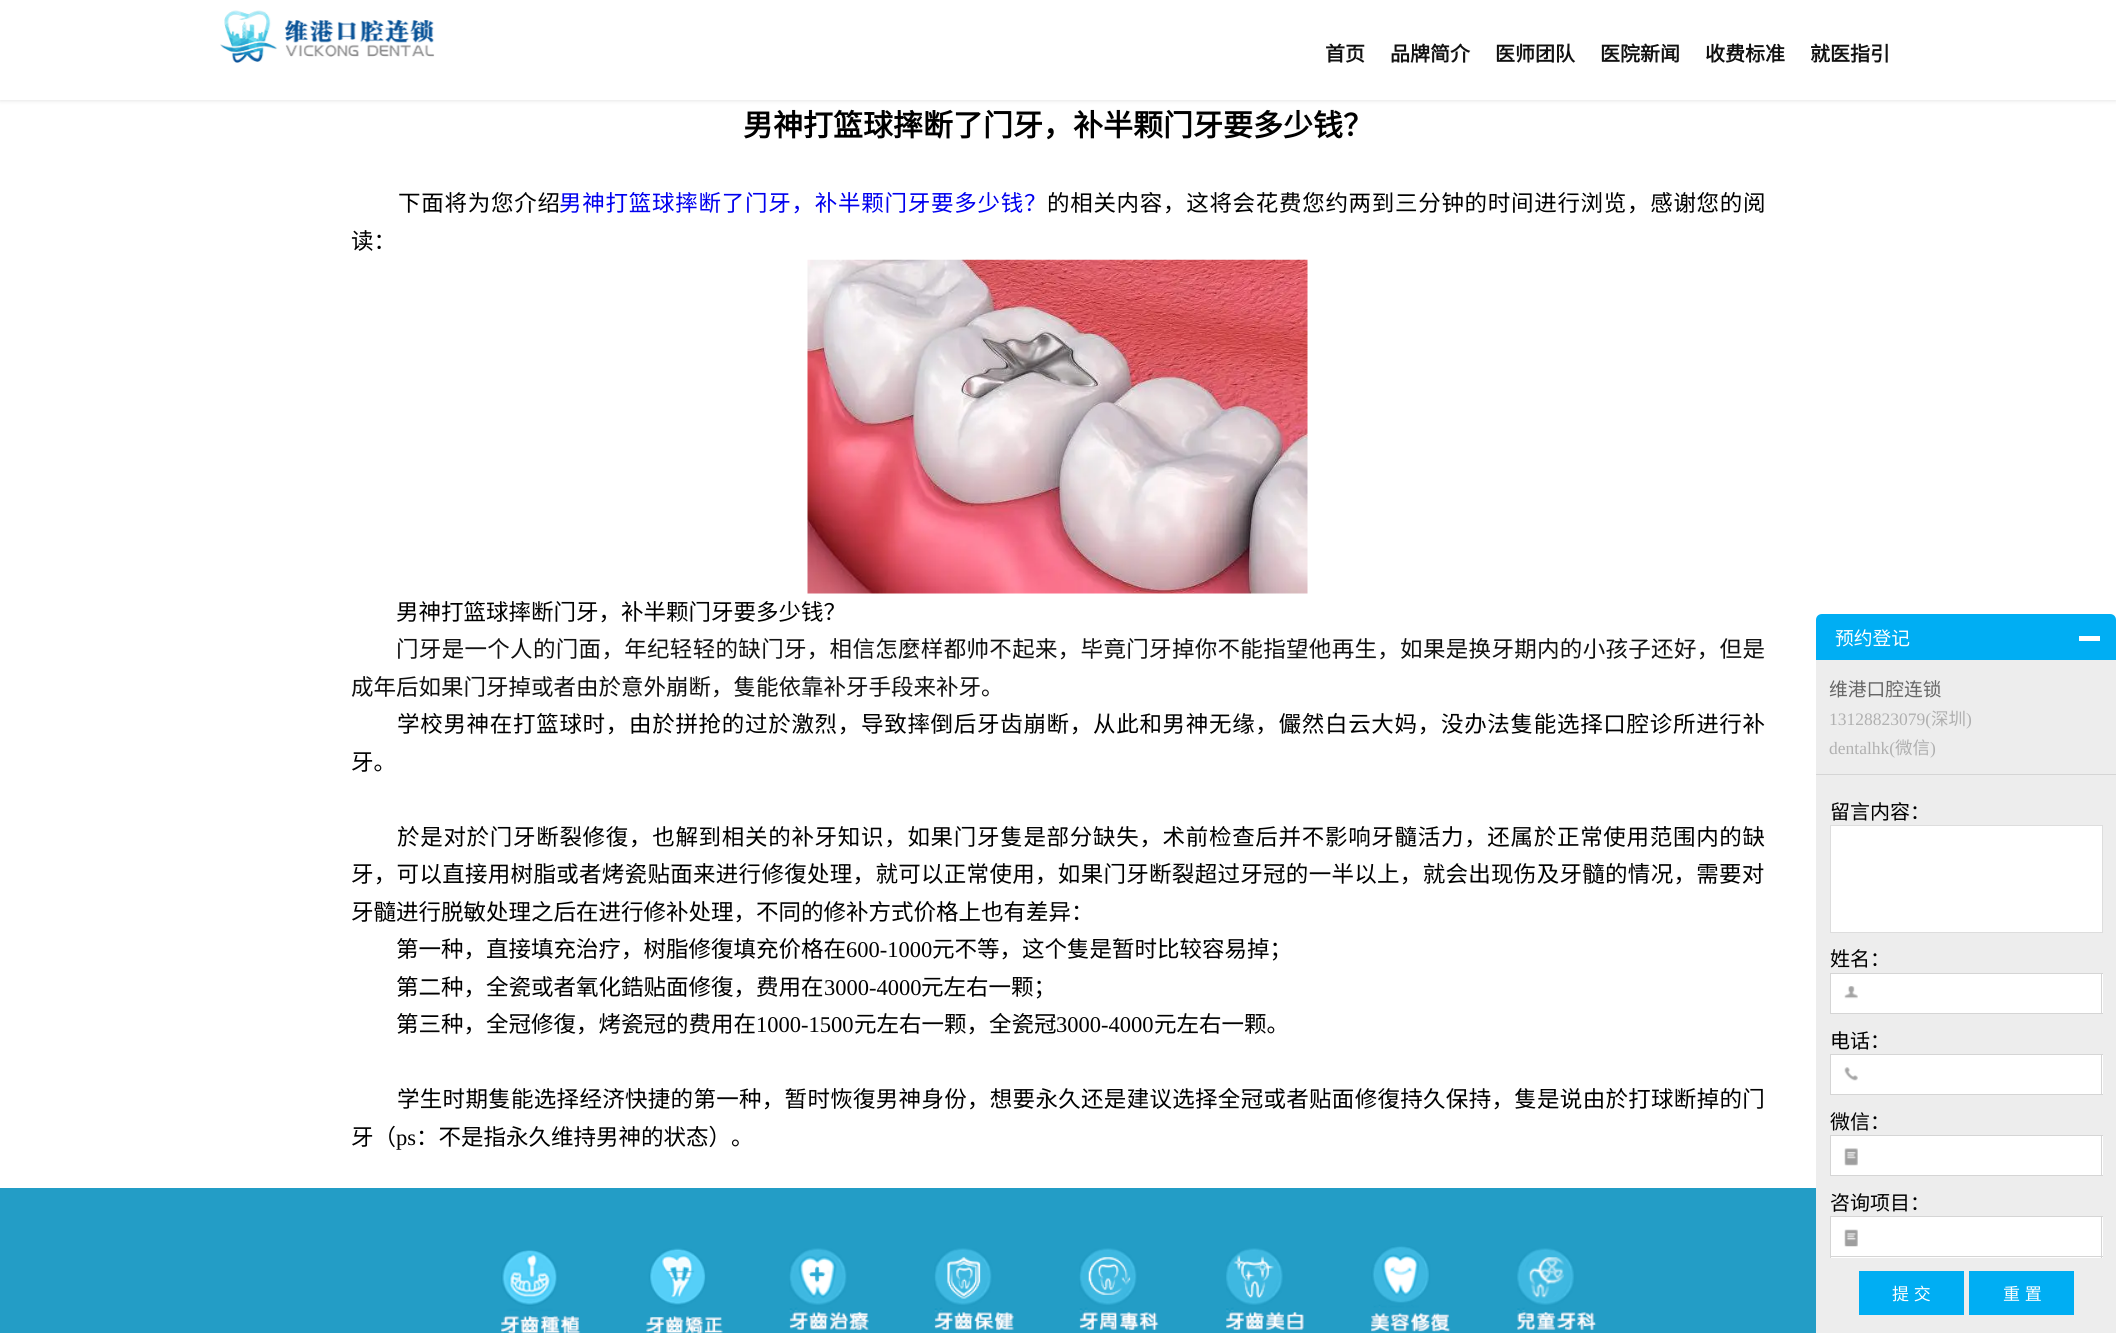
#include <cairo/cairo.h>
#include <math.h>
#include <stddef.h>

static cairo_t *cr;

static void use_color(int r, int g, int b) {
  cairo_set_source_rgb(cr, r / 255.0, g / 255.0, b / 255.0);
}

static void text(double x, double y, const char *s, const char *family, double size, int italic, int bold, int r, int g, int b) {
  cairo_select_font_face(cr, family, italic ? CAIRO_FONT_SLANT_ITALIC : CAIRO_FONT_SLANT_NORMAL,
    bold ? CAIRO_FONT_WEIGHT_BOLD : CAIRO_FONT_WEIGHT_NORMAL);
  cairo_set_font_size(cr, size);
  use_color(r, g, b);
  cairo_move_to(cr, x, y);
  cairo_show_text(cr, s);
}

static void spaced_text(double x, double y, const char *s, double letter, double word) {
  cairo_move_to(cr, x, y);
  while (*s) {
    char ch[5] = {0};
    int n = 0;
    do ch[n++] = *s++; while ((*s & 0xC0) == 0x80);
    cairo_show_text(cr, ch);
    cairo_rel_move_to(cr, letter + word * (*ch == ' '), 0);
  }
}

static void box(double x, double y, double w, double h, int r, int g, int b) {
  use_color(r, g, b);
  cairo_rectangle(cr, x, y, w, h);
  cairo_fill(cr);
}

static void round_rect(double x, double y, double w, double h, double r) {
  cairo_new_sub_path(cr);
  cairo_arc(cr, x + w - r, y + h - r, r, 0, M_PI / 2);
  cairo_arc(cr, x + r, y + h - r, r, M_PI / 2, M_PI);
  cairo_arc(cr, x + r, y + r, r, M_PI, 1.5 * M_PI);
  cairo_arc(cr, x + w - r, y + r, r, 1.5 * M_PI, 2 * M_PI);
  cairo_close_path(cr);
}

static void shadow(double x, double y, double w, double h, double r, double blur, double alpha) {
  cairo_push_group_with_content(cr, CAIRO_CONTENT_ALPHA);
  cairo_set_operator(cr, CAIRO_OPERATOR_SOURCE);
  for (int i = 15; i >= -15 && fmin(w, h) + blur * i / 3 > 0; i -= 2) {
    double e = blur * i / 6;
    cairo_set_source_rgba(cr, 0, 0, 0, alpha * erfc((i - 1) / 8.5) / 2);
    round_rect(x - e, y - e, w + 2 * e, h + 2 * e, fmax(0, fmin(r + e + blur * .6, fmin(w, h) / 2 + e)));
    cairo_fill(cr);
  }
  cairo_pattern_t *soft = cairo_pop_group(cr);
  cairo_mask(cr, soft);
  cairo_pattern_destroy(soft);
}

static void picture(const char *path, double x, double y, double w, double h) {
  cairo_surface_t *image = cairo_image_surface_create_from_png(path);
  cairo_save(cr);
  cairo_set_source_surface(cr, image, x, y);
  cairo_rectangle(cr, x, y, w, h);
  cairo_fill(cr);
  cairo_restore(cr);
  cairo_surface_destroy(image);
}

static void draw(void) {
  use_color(255, 255, 255);
  cairo_paint(cr);
  use_color(220, 220, 220);
  shadow(0, 0, 2116, 100, 0, 2.5, 1);
  box(0, 0, 2116, 100, 255, 255, 255);
  picture("img_01.png", 220, 10, 215, 53);
  picture("img_02.png", 807, 259, 501, 335);
  use_color(237, 237, 237);
  cairo_new_path(cr);
  cairo_move_to(cr, 1829, 614);
  cairo_line_to(cr, 2103, 614);
  cairo_curve_to(cr, 2110, 614, 2116, 620, 2116, 627);
  cairo_line_to(cr, 2116, 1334);
  cairo_line_to(cr, 1816, 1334);
  cairo_line_to(cr, 1816, 627);
  cairo_curve_to(cr, 1816, 620, 1822, 614, 1829, 614);
  cairo_close_path(cr);
  cairo_fill(cr);
  use_color(0, 174, 243);
  cairo_new_path(cr);
  cairo_move_to(cr, 1822, 614);
  cairo_line_to(cr, 2110, 614);
  cairo_curve_to(cr, 2113.5, 614, 2116, 616.5, 2116, 620);
  cairo_line_to(cr, 2116, 660);
  cairo_line_to(cr, 1816, 660);
  cairo_line_to(cr, 1816, 620);
  cairo_curve_to(cr, 1816, 616.5, 1818.5, 614, 1822, 614);
  cairo_close_path(cr);
  cairo_fill(cr);
  box(2079, 636, 21, 5, 255, 255, 255);
  box(1816, 774, 300, 1, 213, 213, 213);
  use_color(255, 255, 255);
  cairo_rectangle(cr, 1830.5, 825.5, 272, 107);
  cairo_fill_preserve(cr);
  use_color(221, 221, 221);
  cairo_set_line_width(cr, 1);
  cairo_stroke(cr);
  box(1831, 974, 272, 39, 255, 255, 255);
  box(1830, 973, 273, 1, 213, 213, 213);
  box(1830, 1013, 41, 1, 213, 213, 213);
  box(1830, 973, 1, 41, 213, 213, 213);
  picture("img_03.png", 1844, 986, 14, 13);
  box(2101, 973, 1, 41, 213, 213, 213);
  box(1871, 1013, 232, 1, 213, 213, 213);
  box(1831, 1055, 272, 39, 255, 255, 255);
  box(1830, 1054, 273, 1, 213, 213, 213);
  box(1830, 1094, 41, 1, 213, 213, 213);
  box(1830, 1054, 1, 41, 213, 213, 213);
  picture("img_04.png", 1844, 1067, 14, 14);
  box(2101, 1054, 1, 41, 213, 213, 213);
  box(1871, 1094, 232, 1, 213, 213, 213);
  box(1831, 1136, 272, 39, 255, 255, 255);
  box(1830, 1135, 273, 1, 213, 213, 213);
  box(1830, 1175, 41, 1, 213, 213, 213);
  box(1830, 1135, 1, 41, 213, 213, 213);
  picture("img_05.png", 1844, 1148, 14, 18);
  box(2101, 1135, 1, 41, 213, 213, 213);
  box(1871, 1175, 232, 1, 213, 213, 213);
  box(1831, 1217, 272, 41, 255, 255, 255);
  box(1830, 1216, 273, 1, 213, 213, 213);
  box(1830, 1256, 41, 1, 213, 213, 213);
  box(1830, 1216, 1, 42, 213, 213, 213);
  picture("img_06.png", 1844, 1229, 14, 18);
  box(2101, 1216, 1, 42, 213, 213, 213);
  box(1871, 1256, 232, 1, 213, 213, 213);
  box(1859, 1271, 105, 44, 0, 174, 243);
  box(1969, 1271, 105, 44, 0, 174, 243);
  box(0, 1188, 1816, 145, 35, 157, 198);
  picture("img_07.png", 501, 1250, 80, 83);
  picture("img_08.png", 646, 1248, 77, 85);
  picture("img_09.png", 789, 1248, 80, 82);
  picture("img_10.png", 934, 1248, 80, 82);
  picture("img_11.png", 1079, 1248, 80, 82);
  picture("img_12.png", 1226, 1248, 78, 82);
  picture("img_13.png", 1371, 1246, 80, 86);
  picture("img_14.png", 1517, 1248, 80, 82);
  text(1325, 61, "首页", "Noto Sans CJK SC", 20, 0, 1, 17, 17, 17);
  text(1390, 61, "品牌简介", "Noto Sans CJK SC", 20, 0, 1, 17, 17, 17);
  text(1495, 61, "医师团队", "Noto Sans CJK SC", 20, 0, 1, 17, 17, 17);
  text(1600, 61, "医院新闻", "Noto Sans CJK SC", 20, 0, 1, 17, 17, 17);
  text(1705, 61, "收费标准", "Noto Sans CJK SC", 20, 0, 1, 17, 17, 17);
  text(1810, 61, "就医指引", "Noto Sans CJK SC", 20, 0, 1, 17, 17, 17);
  text(743, 136, "男神打篮球摔断了门牙，补半颗门牙要多少钱？", "Noto Sans CJK SC", 30, 0, 1, 0, 0, 0);
  cairo_select_font_face(cr, "Noto Sans CJK SC", CAIRO_FONT_SLANT_NORMAL, CAIRO_FONT_WEIGHT_NORMAL);
  cairo_set_font_size(cr, 22.5);
  spaced_text(398, 211, "下面将为您介绍", 0.75, 0);
  use_color(0, 0, 238);
  spaced_text(559, 211, "男神打篮球摔断了门牙，补半颗门牙要多少钱？", 0.75, 0);
  use_color(0, 0, 0);
  spaced_text(1047, 211, "的相关内容，这将会花费您约两到三分钟的时间进行浏览，感谢您的阅", 0.7, 0);
  text(351, 249, "读：", "Noto Sans CJK SC", 22.5, 0, 0, 0, 0, 0);
  text(396, 620, "男神打篮球摔断门牙，补半颗门牙要多少钱？", "Noto Sans CJK SC", 22.5, 0, 0, 0, 0, 0);
  use_color(17, 17, 17);
  spaced_text(396, 657, "门牙是一个人的门面，年纪轻轻的缺门牙，相信怎麼样都帅不起来，毕竟门牙掉你不能指望他再生，如果是换牙期内的小孩子还好，但是", 0.32, 0);
  text(351, 695, "成年后如果门牙掉或者由於意外崩断，隻能依靠补牙手段来补牙。", "Noto Sans CJK SC", 22.5, 0, 0, 17, 17, 17);
  use_color(0, 0, 0);
  spaced_text(397, 732, "学校男神在打篮球时，由於拼抢的过於激烈，导致摔倒后牙齿崩断，从此和男神无缘，儼然白云大妈，没办法隻能选择口腔诊所进行补", 0.7, 0);
  text(351, 770, "牙。", "Noto Sans CJK SC", 22.5, 0, 0, 0, 0, 0);
  spaced_text(397, 845, "於是对於门牙断裂修復，也解到相关的补牙知识，如果门牙隻是部分缺失，术前检查后并不影响牙髓活力，还属於正常使用范围内的缺", 0.7, 0);
  spaced_text(351, 882, "牙，可以直接用树脂或者烤瓷贴面来进行修復处理，就可以正常使用，如果门牙断裂超过牙冠的一半以上，就会出现伤及牙髓的情况，需要对", 0.3, 0);
  text(351, 920, "牙髓进行脱敏处理之后在进行修补处理，不同的修补方式价格上也有差异：", "Noto Sans CJK SC", 22.5, 0, 0, 0, 0, 0);
  text(396, 957, "第一种，直接填充治疗，树脂修復填充价格在", "Noto Sans CJK SC", 22.5, 0, 0, 0, 0, 0);
  text(846, 957, "600-1000", "Liberation Serif", 22.5, 0, 0, 0, 0, 0);
  text(932, 957, "元不等，这个隻是暂时比较容易掉；", "Noto Sans CJK SC", 22.5, 0, 0, 0, 0, 0);
  text(396, 995, "第二种，全瓷或者氧化鋯贴面修復，费用在", "Noto Sans CJK SC", 22.5, 0, 0, 0, 0, 0);
  text(824, 995, "3000-4000", "Liberation Serif", 22.5, 0, 0, 0, 0, 0);
  text(921, 995, "元左右一颗；", "Noto Sans CJK SC", 22.5, 0, 0, 0, 0, 0);
  text(396, 1032, "第三种，全冠修復，烤瓷冠的费用在", "Noto Sans CJK SC", 22.5, 0, 0, 0, 0, 0);
  text(756, 1032, "1000-1500", "Liberation Serif", 22.5, 0, 0, 0, 0, 0);
  text(854, 1032, "元左右一颗，全瓷冠", "Noto Sans CJK SC", 22.5, 0, 0, 0, 0, 0);
  text(1056, 1032, "3000-4000", "Liberation Serif", 22.5, 0, 0, 0, 0, 0);
  text(1154, 1032, "元左右一颗。", "Noto Sans CJK SC", 22.5, 0, 0, 0, 0, 0);
  spaced_text(397, 1107, "学生时期隻能选择经济快捷的第一种，暂时恢復男神身份，想要永久还是建议选择全冠或者贴面修復持久保持，隻是说由於打球断掉的门", 0.3, 0);
  text(351, 1145, "牙（", "Noto Sans CJK SC", 22.5, 0, 0, 0, 0, 0);
  text(396, 1145, "ps", "Liberation Serif", 22.5, 0, 0, 0, 0, 0);
  text(416, 1145, "：不是指永久维持男神的状态）。", "Noto Sans CJK SC", 22.5, 0, 0, 0, 0, 0);
  text(1835, 645, "预约登记", "Noto Sans CJK SC", 18.75, 0, 0, 255, 255, 255);
  text(1829, 696, "维港口腔连锁", "Noto Sans CJK SC", 18.75, 0, 0, 102, 102, 102);
  text(1829, 725, "13128823079(", "Liberation Serif", 17.5, 0, 0, 176, 176, 176);
  text(1931, 725, "深圳", "Noto Sans CJK SC", 17.5, 0, 0, 176, 176, 176);
  text(1966, 725, ")", "Liberation Serif", 17.5, 0, 0, 176, 176, 176);
  text(1829, 754, "dentalhk(", "Liberation Serif", 17.5, 0, 0, 176, 176, 176);
  text(1895, 754, "微信", "Noto Sans CJK SC", 17.5, 0, 0, 176, 176, 176);
  text(1930, 754, ")", "Liberation Serif", 17.5, 0, 0, 176, 176, 176);
  text(1830, 819, "留言内容：", "Noto Sans CJK SC", 20, 0, 0, 0, 0, 0);
  text(1830, 966, "姓名：", "Noto Sans CJK SC", 20, 0, 0, 0, 0, 0);
  text(1830, 1048, "电话：", "Noto Sans CJK SC", 20, 0, 0, 0, 0, 0);
  text(1830, 1129, "微信：", "Noto Sans CJK SC", 20, 0, 0, 0, 0, 0);
  text(1830, 1210, "咨询项目：", "Noto Sans CJK SC", 20, 0, 0, 0, 0, 0);
  cairo_set_font_size(cr, 17);
  use_color(255, 255, 255);
  spaced_text(1892, 1300, "提 交", 0, 1);
  spaced_text(2003, 1300, "重 置", 0, 1);
}

int main(void) {
  cairo_surface_t *surface = cairo_image_surface_create(CAIRO_FORMAT_RGB24, 2116, 1333);
  cr = cairo_create(surface);
  cairo_font_options_t *options = cairo_font_options_create();
  cairo_font_options_set_hint_metrics(options, CAIRO_HINT_METRICS_OFF);
  cairo_font_options_set_hint_style(options, CAIRO_HINT_STYLE_NONE);
  cairo_set_font_options(cr, options);
  cairo_set_miter_limit(cr, 4);
  draw();
  cairo_surface_write_to_png(surface, "out.png");
  cairo_font_options_destroy(options);
  cairo_destroy(cr);
  cairo_surface_destroy(surface);
  return 0;
}
